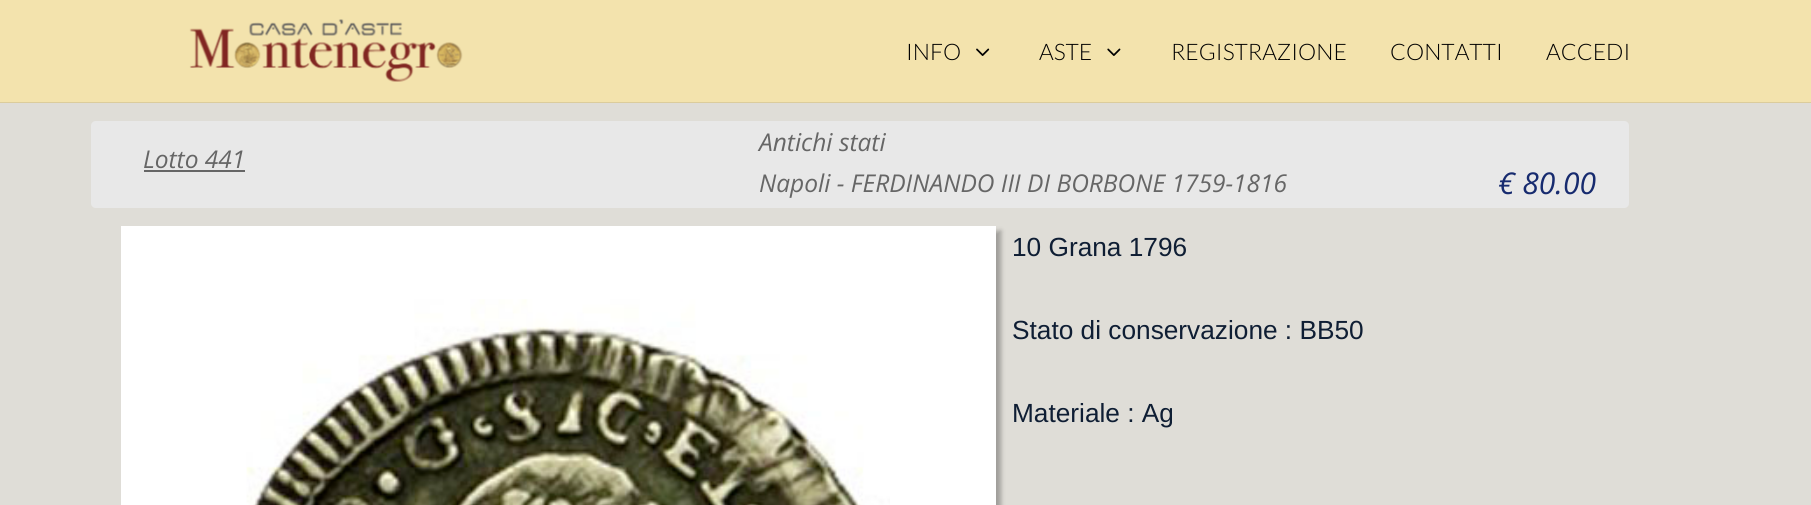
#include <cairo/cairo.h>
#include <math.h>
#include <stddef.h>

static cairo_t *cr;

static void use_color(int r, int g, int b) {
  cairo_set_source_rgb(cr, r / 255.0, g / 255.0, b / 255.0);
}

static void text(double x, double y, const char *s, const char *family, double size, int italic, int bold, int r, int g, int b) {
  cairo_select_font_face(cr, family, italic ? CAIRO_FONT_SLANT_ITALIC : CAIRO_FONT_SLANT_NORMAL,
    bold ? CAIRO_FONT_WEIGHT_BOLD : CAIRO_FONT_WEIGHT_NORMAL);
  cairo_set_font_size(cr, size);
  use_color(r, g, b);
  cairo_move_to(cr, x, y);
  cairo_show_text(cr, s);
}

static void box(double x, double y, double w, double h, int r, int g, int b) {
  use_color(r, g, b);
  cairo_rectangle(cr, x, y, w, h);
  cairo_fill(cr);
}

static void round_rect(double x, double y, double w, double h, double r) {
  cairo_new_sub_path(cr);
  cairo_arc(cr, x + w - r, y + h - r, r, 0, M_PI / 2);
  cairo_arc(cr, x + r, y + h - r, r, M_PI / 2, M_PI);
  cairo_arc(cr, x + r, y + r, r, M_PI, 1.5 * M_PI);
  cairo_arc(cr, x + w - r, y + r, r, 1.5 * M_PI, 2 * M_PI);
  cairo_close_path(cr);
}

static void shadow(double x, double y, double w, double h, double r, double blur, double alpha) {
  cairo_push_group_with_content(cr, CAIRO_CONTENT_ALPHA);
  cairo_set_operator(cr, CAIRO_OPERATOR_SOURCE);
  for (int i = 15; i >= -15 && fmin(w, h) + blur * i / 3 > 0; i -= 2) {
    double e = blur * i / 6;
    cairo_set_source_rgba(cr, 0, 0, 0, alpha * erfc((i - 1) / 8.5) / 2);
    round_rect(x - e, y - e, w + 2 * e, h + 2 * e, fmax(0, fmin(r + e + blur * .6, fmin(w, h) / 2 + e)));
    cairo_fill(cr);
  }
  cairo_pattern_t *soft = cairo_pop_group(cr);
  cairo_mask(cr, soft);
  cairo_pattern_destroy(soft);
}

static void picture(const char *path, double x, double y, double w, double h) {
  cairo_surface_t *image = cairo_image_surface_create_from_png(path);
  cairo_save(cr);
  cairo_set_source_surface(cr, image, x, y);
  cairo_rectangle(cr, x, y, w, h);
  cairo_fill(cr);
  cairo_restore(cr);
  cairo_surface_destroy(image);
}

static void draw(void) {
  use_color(243, 227, 173);
  cairo_paint(cr);
  box(0, 102, 1811, 1, 219, 204, 156);
  picture("img_01.png", 189, 19, 274, 63);
  picture("img_02.png", 976, 48, 14, 8);
  picture("img_03.png", 1107, 48, 14, 8);
  box(0, 103, 1811, 402, 223, 221, 215);
  use_color(232, 232, 232);
  cairo_new_path(cr);
  cairo_move_to(cr, 96, 121);
  cairo_line_to(cr, 707, 121);
  cairo_line_to(cr, 707, 208);
  cairo_line_to(cr, 96, 208);
  cairo_curve_to(cr, 93, 208, 91, 206, 91, 203);
  cairo_line_to(cr, 91, 126);
  cairo_curve_to(cr, 91, 123, 93, 121, 96, 121);
  cairo_close_path(cr);
  cairo_fill(cr);
  box(144, 170, 101, 2, 102, 102, 102);
  use_color(232, 232, 232);
  cairo_new_path(cr);
  cairo_move_to(cr, 707, 121);
  cairo_line_to(cr, 1624, 121);
  cairo_curve_to(cr, 1627, 121, 1629, 123, 1629, 126);
  cairo_line_to(cr, 1629, 203);
  cairo_curve_to(cr, 1629, 206, 1627, 208, 1624, 208);
  cairo_line_to(cr, 707, 208);
  cairo_close_path(cr);
  cairo_fill(cr);
  use_color(0, 0, 0);
  shadow(126, 231, 875, 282, 0, 2.5, 0.29);
  box(121, 226, 875, 279, 255, 255, 255);
  picture("img_04.png", 246, 299, 644, 206);
  text(906, 60, "INFO", "Lato Light", 22.75, 0, 0, 0, 0, 0);
  text(1039, 60, "ASTE", "Lato Light", 22.75, 0, 0, 0, 0, 0);
  text(1171, 60, "REGISTRAZIONE", "Lato Light", 22.75, 0, 0, 0, 0, 0);
  text(1390, 60, "CONTATTI", "Lato Light", 22.75, 0, 0, 0, 0, 0);
  text(1546, 60, "ACCEDI", "Lato Light", 22.75, 0, 0, 0, 0, 0);
  text(143, 168, "Lotto 441", "Open Sans", 24.5, 1, 0, 102, 102, 102);
  text(759, 151, "Antichi stati", "Open Sans", 24.5, 1, 0, 102, 102, 102);
  text(759, 192, "Napoli - FERDINANDO III DI BORBONE 1759-1816", "Open Sans", 24.5, 1, 0, 102, 102, 102);
  text(1498, 194, "€ 80.00", "Open Sans", 30, 1, 0, 23, 43, 111);
  text(1012, 256, "10 Grana 1796", "Liberation Sans", 26.25, 0, 0, 15, 30, 52);
  text(1012, 339, "Stato di conservazione : BB50", "Liberation Sans", 26.25, 0, 0, 15, 30, 52);
  text(1012, 422, "Materiale : Ag", "Liberation Sans", 26.25, 0, 0, 15, 30, 52);
}

int main(void) {
  cairo_surface_t *surface = cairo_image_surface_create(CAIRO_FORMAT_RGB24, 1811, 505);
  cr = cairo_create(surface);
  cairo_font_options_t *options = cairo_font_options_create();
  cairo_font_options_set_hint_metrics(options, CAIRO_HINT_METRICS_OFF);
  cairo_font_options_set_hint_style(options, CAIRO_HINT_STYLE_NONE);
  cairo_set_font_options(cr, options);
  cairo_set_miter_limit(cr, 4);
  draw();
  cairo_surface_write_to_png(surface, "out.png");
  cairo_font_options_destroy(options);
  cairo_destroy(cr);
  cairo_surface_destroy(surface);
  return 0;
}
